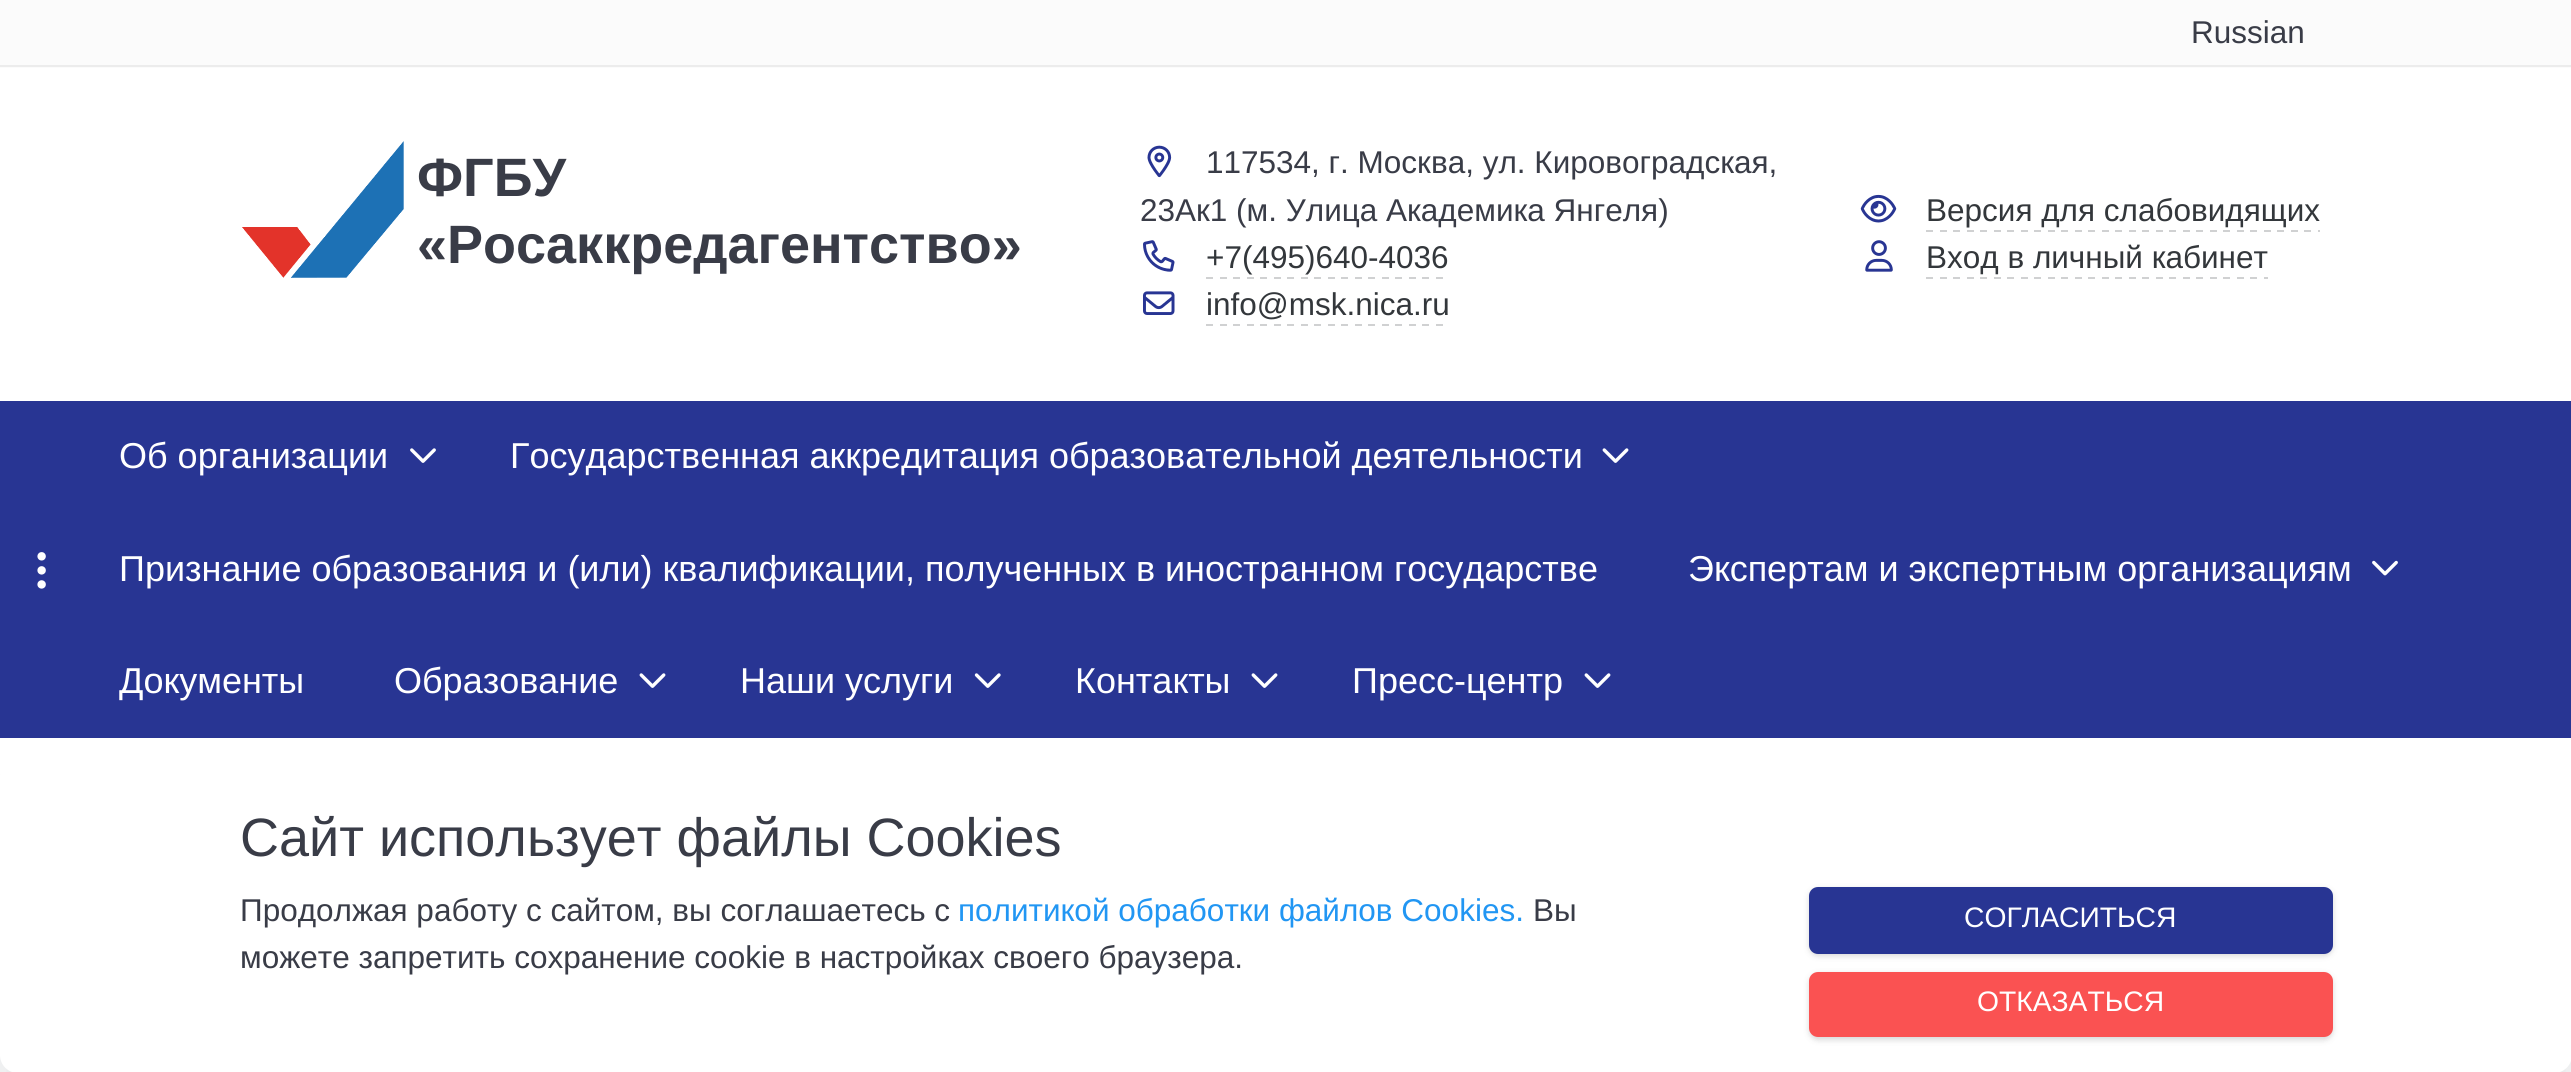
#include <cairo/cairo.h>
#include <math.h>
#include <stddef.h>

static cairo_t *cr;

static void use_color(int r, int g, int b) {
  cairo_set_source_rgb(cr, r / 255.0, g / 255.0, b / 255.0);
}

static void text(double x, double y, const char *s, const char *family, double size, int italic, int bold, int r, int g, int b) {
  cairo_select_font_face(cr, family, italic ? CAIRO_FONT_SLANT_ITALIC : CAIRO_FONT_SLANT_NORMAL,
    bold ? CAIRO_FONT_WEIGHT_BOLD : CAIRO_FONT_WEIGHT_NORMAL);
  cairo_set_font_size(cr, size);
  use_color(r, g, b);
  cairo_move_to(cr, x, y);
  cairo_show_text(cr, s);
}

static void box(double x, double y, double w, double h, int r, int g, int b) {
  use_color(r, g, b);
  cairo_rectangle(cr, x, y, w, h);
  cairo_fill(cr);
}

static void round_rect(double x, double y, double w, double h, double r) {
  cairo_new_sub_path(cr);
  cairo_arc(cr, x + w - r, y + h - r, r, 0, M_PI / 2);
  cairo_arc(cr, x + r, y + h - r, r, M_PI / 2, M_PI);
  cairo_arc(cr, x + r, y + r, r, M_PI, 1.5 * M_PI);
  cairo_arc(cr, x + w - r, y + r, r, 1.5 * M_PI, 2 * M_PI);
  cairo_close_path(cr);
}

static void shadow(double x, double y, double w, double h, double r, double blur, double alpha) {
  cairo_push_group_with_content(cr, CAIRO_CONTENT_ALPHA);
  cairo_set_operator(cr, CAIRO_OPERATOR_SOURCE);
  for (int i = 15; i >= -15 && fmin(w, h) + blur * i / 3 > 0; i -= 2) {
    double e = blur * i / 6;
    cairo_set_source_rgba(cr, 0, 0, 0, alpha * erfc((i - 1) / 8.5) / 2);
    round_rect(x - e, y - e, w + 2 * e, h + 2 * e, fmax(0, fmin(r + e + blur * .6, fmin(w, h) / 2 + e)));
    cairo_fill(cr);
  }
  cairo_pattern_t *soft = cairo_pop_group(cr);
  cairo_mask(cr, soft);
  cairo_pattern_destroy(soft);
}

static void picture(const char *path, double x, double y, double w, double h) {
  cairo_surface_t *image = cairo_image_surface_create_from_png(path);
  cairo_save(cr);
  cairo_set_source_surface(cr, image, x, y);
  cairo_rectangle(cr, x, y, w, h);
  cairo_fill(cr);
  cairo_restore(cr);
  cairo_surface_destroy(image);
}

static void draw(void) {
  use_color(248, 249, 250);
  cairo_paint(cr);
  box(0, 68, 2571, 711, 255, 255, 255);
  box(0, 0, 2571, 68, 251, 251, 251);
  box(0, 65, 2571, 2, 236, 236, 236);
  picture("img_01.png", 242, 141, 162, 137);
  picture("img_02.png", 1147, 145, 25, 33);
  picture("img_03.png", 1143, 240, 32, 32);
  box(1206, 277, 7, 2, 208, 209, 210);
  box(1220, 277, 7, 2, 208, 209, 210);
  box(1233, 277, 7, 2, 208, 209, 210);
  box(1247, 277, 7, 2, 208, 209, 210);
  box(1260, 277, 7, 2, 208, 209, 210);
  box(1274, 277, 7, 2, 208, 209, 210);
  box(1287, 277, 7, 2, 208, 209, 210);
  box(1301, 277, 7, 2, 208, 209, 210);
  box(1314, 277, 7, 2, 208, 209, 210);
  box(1328, 277, 7, 2, 208, 209, 210);
  box(1341, 277, 7, 2, 208, 209, 210);
  box(1355, 277, 7, 2, 208, 209, 210);
  box(1368, 277, 7, 2, 208, 209, 210);
  box(1382, 277, 7, 2, 208, 209, 210);
  box(1395, 277, 7, 2, 208, 209, 210);
  box(1409, 277, 7, 2, 208, 209, 210);
  box(1422, 277, 7, 2, 208, 209, 210);
  box(1436, 277, 7, 2, 208, 209, 210);
  picture("img_04.png", 1143, 291, 32, 24);
  box(1206, 324, 7, 2, 208, 209, 210);
  box(1220, 324, 7, 2, 208, 209, 210);
  box(1233, 324, 7, 2, 208, 209, 210);
  box(1247, 324, 7, 2, 208, 209, 210);
  box(1260, 324, 7, 2, 208, 209, 210);
  box(1274, 324, 7, 2, 208, 209, 210);
  box(1287, 324, 7, 2, 208, 209, 210);
  box(1301, 324, 7, 2, 208, 209, 210);
  box(1314, 324, 7, 2, 208, 209, 210);
  box(1328, 324, 7, 2, 208, 209, 210);
  box(1341, 324, 7, 2, 208, 209, 210);
  box(1355, 324, 7, 2, 208, 209, 210);
  box(1368, 324, 7, 2, 208, 209, 210);
  box(1382, 324, 7, 2, 208, 209, 210);
  box(1395, 324, 7, 2, 208, 209, 210);
  box(1409, 324, 7, 2, 208, 209, 210);
  box(1422, 324, 7, 2, 208, 209, 210);
  box(1436, 324, 7, 2, 208, 209, 210);
  picture("img_05.png", 1860, 194, 37, 29);
  picture("img_06.png", 1926, 230, 394, 2);
  picture("img_07.png", 1865, 240, 28, 32);
  picture("img_08.png", 1926, 277, 342, 2);
  box(0, 401, 2571, 337, 40, 53, 147);
  picture("img_09.png", 37, 552, 9, 37);
  picture("img_10.png", 410, 448, 26, 15);
  picture("img_11.png", 1602, 448, 27, 15);
  picture("img_12.png", 2372, 560, 26, 16);
  picture("img_11.png", 639, 673, 27, 15);
  picture("img_13.png", 974, 673, 27, 15);
  picture("img_11.png", 1251, 673, 27, 15);
  picture("img_11.png", 1584, 673, 27, 15);
  use_color(0, 0, 0);
  shadow(11, 817, 2550, 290, 7, 28, 0.1);
  use_color(255, 255, 255);
  round_rect(0, 761, 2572, 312, 18);
  cairo_fill(cr);
  use_color(0, 0, 0);
  shadow(1809, 889, 524, 67, 9, 2, 0.06);
  shadow(1809, 889, 524, 67, 9, 3.5, 0.1);
  use_color(40, 53, 147);
  round_rect(1809, 887, 524, 67, 9);
  cairo_fill(cr);
  use_color(0, 0, 0);
  shadow(1809, 974, 524, 66, 9, 2, 0.06);
  shadow(1809, 974, 524, 66, 9, 3.5, 0.1);
  use_color(250, 82, 82);
  round_rect(1809, 972, 524, 65, 9);
  cairo_fill(cr);
  text(2191, 43, "Russian", "Liberation Sans", 31.5, 0, 0, 57, 60, 71);
  text(417, 196, "ФГБУ", "Liberation Sans", 54, 0, 1, 57, 60, 71);
  text(417, 263, "«Росаккредагентство»", "Liberation Sans", 54, 0, 1, 57, 60, 71);
  text(1206, 173, "117534, г. Москва, ул. Кировоградская,", "Liberation Sans", 31.5, 0, 0, 57, 60, 71);
  text(1140, 221, "23Ак1 (м. Улица Академика Янгеля)", "Liberation Sans", 31.5, 0, 0, 57, 60, 71);
  text(1206, 268, "+7(495)640-4036", "Liberation Sans", 31.5, 0, 0, 51, 55, 59);
  text(1206, 315, "info@msk.nica.ru", "Liberation Sans", 31.5, 0, 0, 51, 55, 59);
  text(1926, 221, "Версия для слабовидящих", "Liberation Sans", 31.5, 0, 0, 51, 55, 59);
  text(1926, 268, "Вход в личный кабинет", "Liberation Sans", 31.5, 0, 0, 51, 55, 59);
  text(119, 468, "Об организации", "Liberation Sans", 36, 0, 0, 255, 255, 255);
  text(510, 468, "Государственная аккредитация образовательной деятельности", "Liberation Sans", 36, 0, 0, 255, 255, 255);
  text(119, 581, "Признание образования и (или) квалификации, полученных в иностранном государстве", "Liberation Sans", 36, 0, 0, 255, 255, 255);
  text(1688, 581, "Экспертам и экспертным организациям", "Liberation Sans", 36, 0, 0, 255, 255, 255);
  text(119, 693, "Документы", "Liberation Sans", 36, 0, 0, 255, 255, 255);
  text(394, 693, "Образование", "Liberation Sans", 36, 0, 0, 255, 255, 255);
  text(740, 693, "Наши услуги", "Liberation Sans", 36, 0, 0, 255, 255, 255);
  text(1075, 693, "Контакты", "Liberation Sans", 36, 0, 0, 255, 255, 255);
  text(1352, 693, "Пресс-центр", "Liberation Sans", 36, 0, 0, 255, 255, 255);
  text(240, 856, "Сайт использует файлы Cookies", "Liberation Sans", 54, 0, 0, 57, 60, 71);
  text(240, 921, "Продолжая работу с сайтом, вы соглашаетесь с", "Liberation Sans", 31.5, 0, 0, 57, 60, 71);
  text(958, 921, "политикой обработки файлов Cookies.", "Liberation Sans", 31.5, 0, 0, 33, 150, 243);
  text(1533, 921, "Вы", "Liberation Sans", 31.5, 0, 0, 57, 60, 71);
  text(240, 968, "можете запретить сохранение cookie в настройках своего браузера.", "Liberation Sans", 31.5, 0, 0, 57, 60, 71);
  text(1964, 927, "СОГЛАСИТЬСЯ", "Liberation Sans", 28.25, 0, 0, 255, 255, 255);
  text(1977, 1011, "ОТКАЗАТЬСЯ", "Liberation Sans", 28.25, 0, 0, 255, 255, 255);
}

int main(void) {
  cairo_surface_t *surface = cairo_image_surface_create(CAIRO_FORMAT_RGB24, 2571, 1072);
  cr = cairo_create(surface);
  cairo_font_options_t *options = cairo_font_options_create();
  cairo_font_options_set_hint_metrics(options, CAIRO_HINT_METRICS_OFF);
  cairo_font_options_set_hint_style(options, CAIRO_HINT_STYLE_NONE);
  cairo_set_font_options(cr, options);
  cairo_set_miter_limit(cr, 4);
  draw();
  cairo_surface_write_to_png(surface, "out.png");
  cairo_font_options_destroy(options);
  cairo_destroy(cr);
  cairo_surface_destroy(surface);
  return 0;
}
